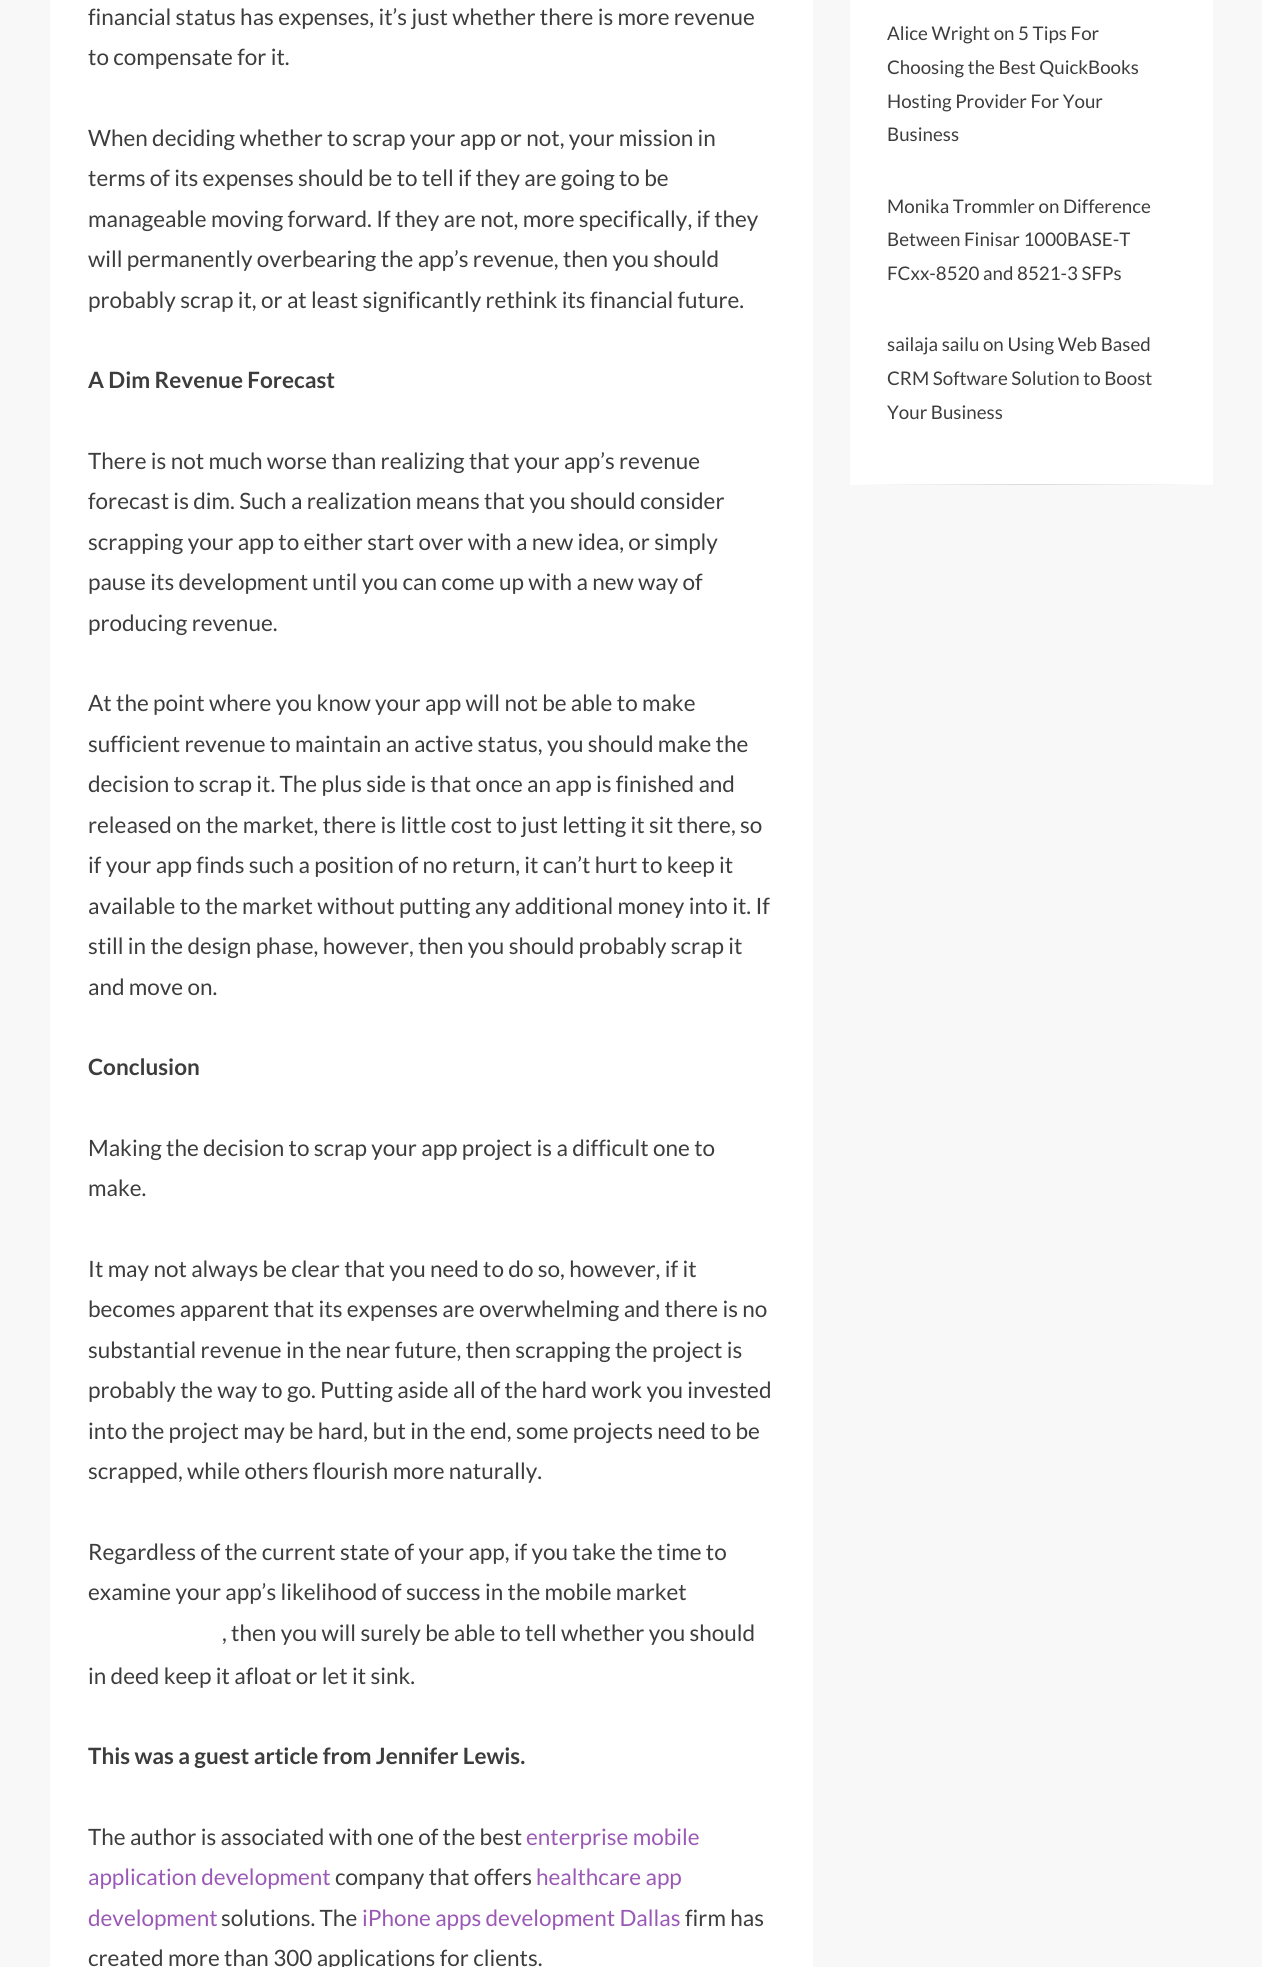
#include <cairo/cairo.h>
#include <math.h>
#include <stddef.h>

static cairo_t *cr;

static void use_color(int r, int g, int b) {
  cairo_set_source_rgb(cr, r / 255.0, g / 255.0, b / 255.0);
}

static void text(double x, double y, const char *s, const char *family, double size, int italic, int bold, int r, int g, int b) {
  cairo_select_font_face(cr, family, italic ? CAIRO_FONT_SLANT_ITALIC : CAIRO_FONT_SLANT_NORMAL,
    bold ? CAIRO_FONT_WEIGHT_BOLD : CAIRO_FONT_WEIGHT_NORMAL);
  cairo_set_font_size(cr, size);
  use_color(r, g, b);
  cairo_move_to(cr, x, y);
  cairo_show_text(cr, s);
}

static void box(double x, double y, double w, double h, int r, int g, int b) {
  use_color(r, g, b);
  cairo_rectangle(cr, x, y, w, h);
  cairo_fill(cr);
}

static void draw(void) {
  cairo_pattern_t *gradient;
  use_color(248, 248, 248);
  cairo_paint(cr);
  box(50, 0, 763, 1967, 255, 255, 255);
  box(850, 0, 363, 484, 255, 255, 255);
  gradient = cairo_pattern_create_linear(850, 484, 1213, 484);
  cairo_pattern_add_color_stop_rgba(gradient, 0, 1, 1, 1, 1);
  cairo_pattern_add_color_stop_rgba(gradient, 0.5, 0.851, 0.851, 0.851, 1);
  cairo_pattern_add_color_stop_rgba(gradient, 1, 1, 1, 1, 1);
  cairo_set_source(cr, gradient);
  cairo_pattern_destroy(gradient);
  cairo_rectangle(cr, 850, 484, 363, 1);
  cairo_fill(cr);
  text(88, 25, "financial status has expenses, it’s just whether there is more revenue", "Lato", 22.5, 0, 0, 61, 61, 61);
  text(88, 65, "to compensate for it.", "Lato", 22.5, 0, 0, 61, 61, 61);
  text(88, 146, "When deciding whether to scrap your app or not, your mission in", "Lato", 22.5, 0, 0, 61, 61, 61);
  text(88, 186, "terms of its expenses should be to tell if they are going to be", "Lato", 22.5, 0, 0, 61, 61, 61);
  text(88, 227, "manageable moving forward. If they are not, more specifically, if they", "Lato", 22.5, 0, 0, 61, 61, 61);
  text(88, 267, "will permanently overbearing the app’s revenue, then you should", "Lato", 22.5, 0, 0, 61, 61, 61);
  text(88, 308, "probably scrap it, or at least significantly rethink its financial future.", "Lato", 22.5, 0, 0, 61, 61, 61);
  text(88, 388, "A Dim Revenue Forecast", "Lato", 22.5, 0, 1, 61, 61, 61);
  text(88, 469, "There is not much worse than realizing that your app’s revenue", "Lato", 22.5, 0, 0, 61, 61, 61);
  text(88, 509, "forecast is dim. Such a realization means that you should consider", "Lato", 22.5, 0, 0, 61, 61, 61);
  text(88, 550, "scrapping your app to either start over with a new idea, or simply", "Lato", 22.5, 0, 0, 61, 61, 61);
  text(88, 590, "pause its development until you can come up with a new way of", "Lato", 22.5, 0, 0, 61, 61, 61);
  text(88, 631, "producing revenue.", "Lato", 22.5, 0, 0, 61, 61, 61);
  text(88, 711, "At the point where you know your app will not be able to make", "Lato", 22.5, 0, 0, 61, 61, 61);
  text(88, 752, "sufficient revenue to maintain an active status, you should make the", "Lato", 22.5, 0, 0, 61, 61, 61);
  text(88, 792, "decision to scrap it. The plus side is that once an app is finished and", "Lato", 22.5, 0, 0, 61, 61, 61);
  text(88, 833, "released on the market, there is little cost to just letting it sit there, so", "Lato", 22.5, 0, 0, 61, 61, 61);
  text(88, 873, "if your app finds such a position of no return, it can’t hurt to keep it", "Lato", 22.5, 0, 0, 61, 61, 61);
  text(88, 914, "available to the market without putting any additional money into it. If", "Lato", 22.5, 0, 0, 61, 61, 61);
  text(88, 954, "still in the design phase, however, then you should probably scrap it", "Lato", 22.5, 0, 0, 61, 61, 61);
  text(88, 995, "and move on.", "Lato", 22.5, 0, 0, 61, 61, 61);
  text(88, 1075, "Conclusion", "Lato", 22.5, 0, 1, 61, 61, 61);
  text(88, 1156, "Making the decision to scrap your app project is a difficult one to", "Lato", 22.5, 0, 0, 61, 61, 61);
  text(88, 1196, "make.", "Lato", 22.5, 0, 0, 61, 61, 61);
  text(88, 1277, "It may not always be clear that you need to do so, however, if it", "Lato", 22.5, 0, 0, 61, 61, 61);
  text(88, 1317, "becomes apparent that its expenses are overwhelming and there is no", "Lato", 22.5, 0, 0, 61, 61, 61);
  text(88, 1358, "substantial revenue in the near future, then scrapping the project is", "Lato", 22.5, 0, 0, 61, 61, 61);
  text(88, 1398, "probably the way to go. Putting aside all of the hard work you invested", "Lato", 22.5, 0, 0, 61, 61, 61);
  text(88, 1439, "into the project may be hard, but in the end, some projects need to be", "Lato", 22.5, 0, 0, 61, 61, 61);
  text(88, 1479, "scrapped, while others flourish more naturally.", "Lato", 22.5, 0, 0, 61, 61, 61);
  text(88, 1560, "Regardless of the current state of your app, if you take the time to", "Lato", 22.5, 0, 0, 61, 61, 61);
  text(88, 1600, "examine your app’s likelihood of success in the mobile market", "Lato", 22.5, 0, 0, 61, 61, 61);
  text(222, 1641, ", then you will surely be able to tell whether you should", "Lato", 22.5, 0, 0, 61, 61, 61);
  text(88, 1684, "in deed keep it afloat or let it sink.", "Lato", 22.5, 0, 0, 61, 61, 61);
  text(88, 1764, "This was a guest article from Jennifer Lewis.", "Lato", 22.5, 0, 1, 61, 61, 61);
  text(88, 1845, "The author is associated with one of the best", "Lato", 22.5, 0, 0, 61, 61, 61);
  text(526, 1845, "enterprise mobile", "Lato", 22.5, 0, 0, 155, 89, 182);
  text(88, 1885, "application development", "Lato", 22.5, 0, 0, 155, 89, 182);
  text(335, 1885, "company that offers", "Lato", 22.5, 0, 0, 61, 61, 61);
  text(536, 1885, "healthcare app", "Lato", 22.5, 0, 0, 155, 89, 182);
  text(88, 1926, "development", "Lato", 22.5, 0, 0, 155, 89, 182);
  text(221, 1926, "solutions. The", "Lato", 22.5, 0, 0, 61, 61, 61);
  text(362, 1926, "iPhone apps development Dallas", "Lato", 22.5, 0, 0, 155, 89, 182);
  text(685, 1926, "firm has", "Lato", 22.5, 0, 0, 61, 61, 61);
  text(88, 1966, "created more than 300 applications for clients.", "Lato", 22.5, 0, 0, 61, 61, 61);
  text(887, 40, "Alice Wright on 5 Tips For", "Lato", 18.75, 0, 0, 61, 61, 61);
  text(887, 74, "Choosing the Best QuickBooks", "Lato", 18.75, 0, 0, 61, 61, 61);
  text(887, 108, "Hosting Provider For Your", "Lato", 18.75, 0, 0, 61, 61, 61);
  text(887, 141, "Business", "Lato", 18.75, 0, 0, 61, 61, 61);
  text(887, 213, "Monika Trommler on Difference", "Lato", 18.75, 0, 0, 61, 61, 61);
  text(887, 246, "Between Finisar 1000BASE-T", "Lato", 18.75, 0, 0, 61, 61, 61);
  text(887, 280, "FCxx-8520 and 8521-3 SFPs", "Lato", 18.75, 0, 0, 61, 61, 61);
  text(887, 351, "sailaja sailu on Using Web Based", "Lato", 18.75, 0, 0, 61, 61, 61);
  text(887, 385, "CRM Software Solution to Boost", "Lato", 18.75, 0, 0, 61, 61, 61);
  text(887, 419, "Your Business", "Lato", 18.75, 0, 0, 61, 61, 61);
}

int main(void) {
  cairo_surface_t *surface = cairo_image_surface_create(CAIRO_FORMAT_RGB24, 1262, 1967);
  cr = cairo_create(surface);
  cairo_font_options_t *options = cairo_font_options_create();
  cairo_font_options_set_hint_metrics(options, CAIRO_HINT_METRICS_OFF);
  cairo_font_options_set_hint_style(options, CAIRO_HINT_STYLE_NONE);
  cairo_set_font_options(cr, options);
  cairo_set_miter_limit(cr, 4);
  draw();
  cairo_surface_write_to_png(surface, "out.png");
  cairo_font_options_destroy(options);
  cairo_destroy(cr);
  cairo_surface_destroy(surface);
  return 0;
}
